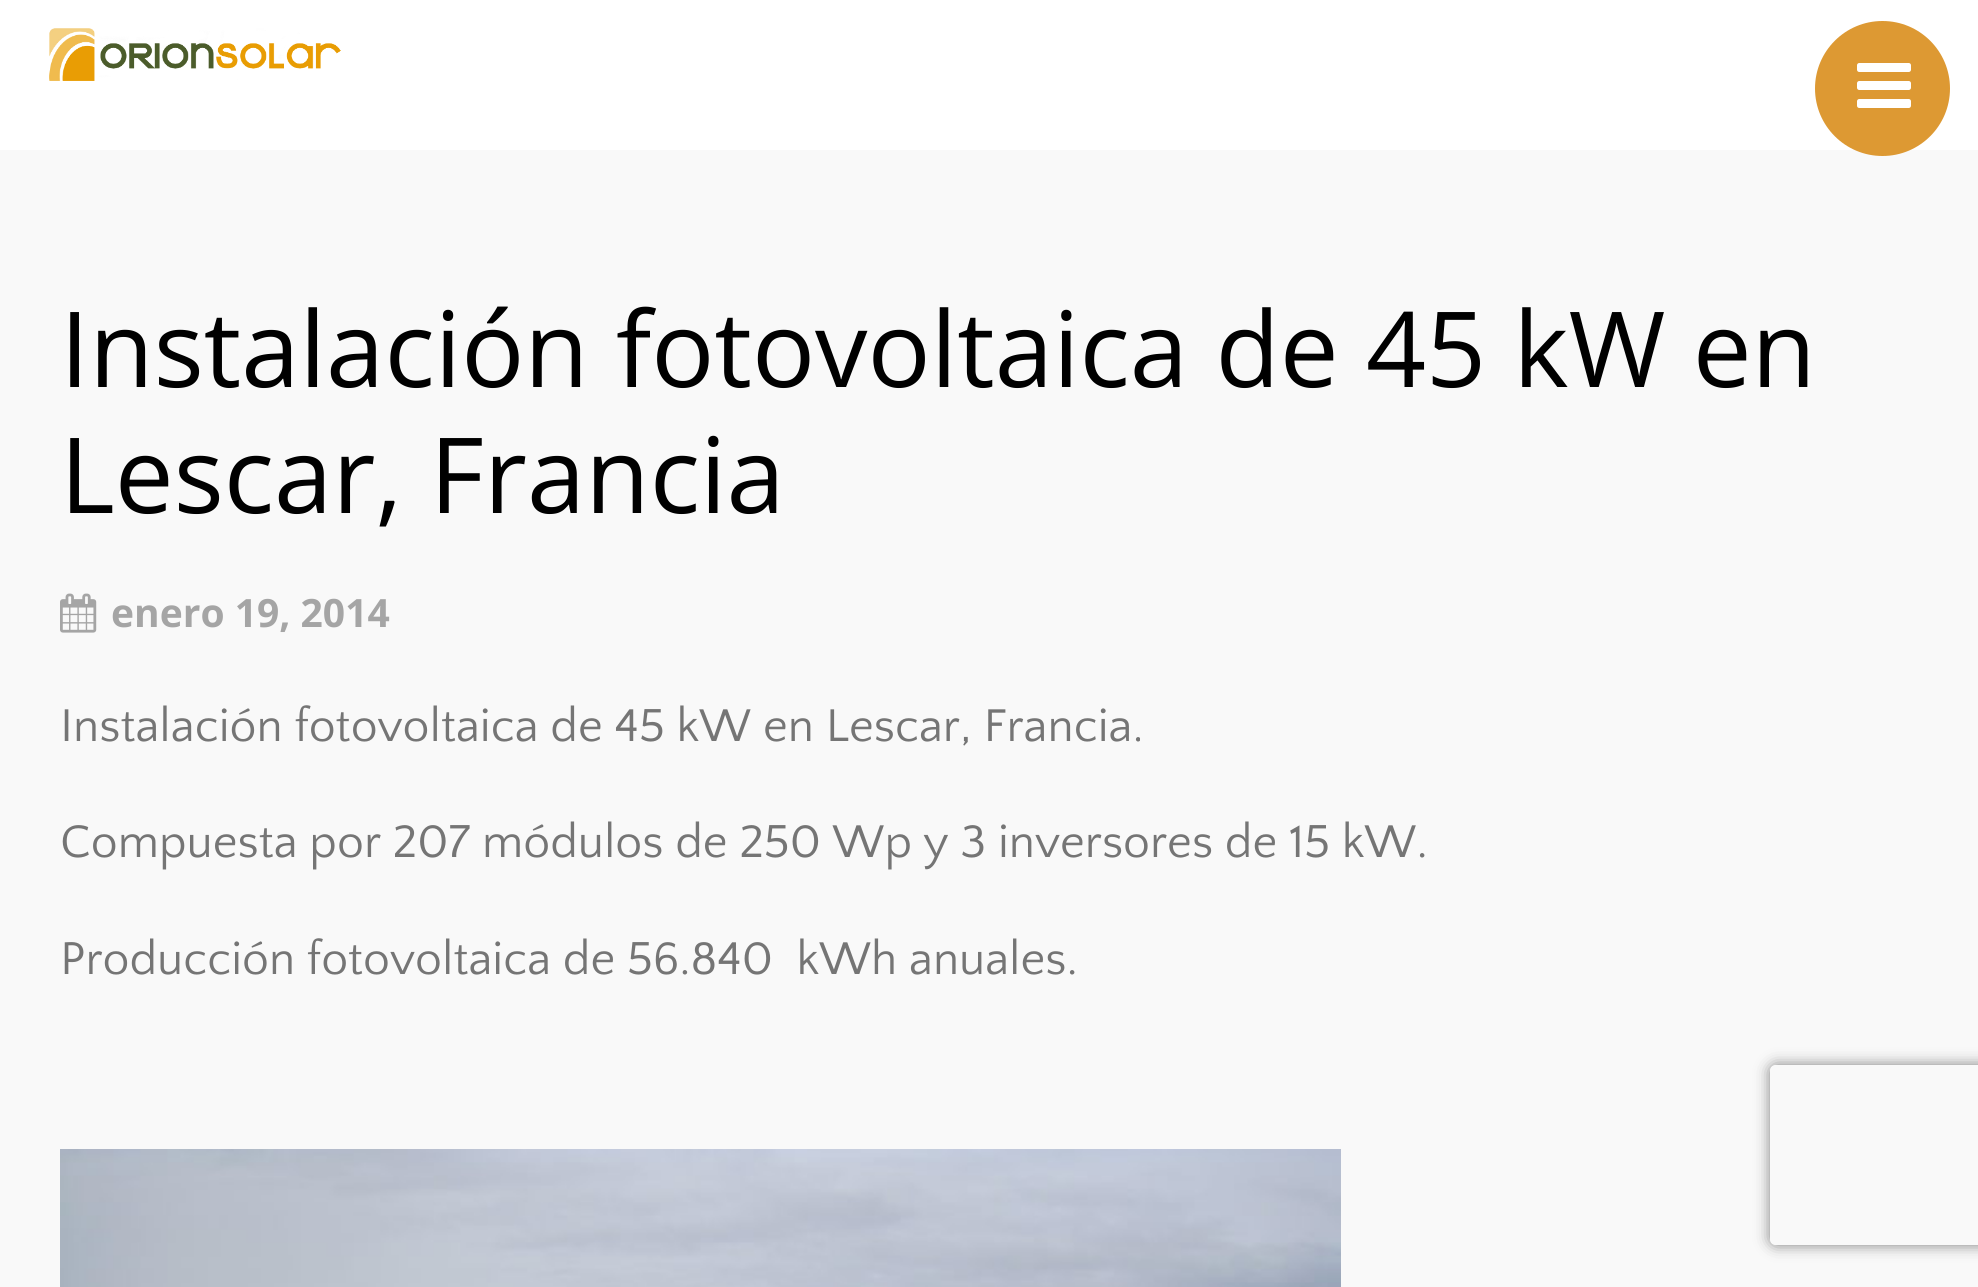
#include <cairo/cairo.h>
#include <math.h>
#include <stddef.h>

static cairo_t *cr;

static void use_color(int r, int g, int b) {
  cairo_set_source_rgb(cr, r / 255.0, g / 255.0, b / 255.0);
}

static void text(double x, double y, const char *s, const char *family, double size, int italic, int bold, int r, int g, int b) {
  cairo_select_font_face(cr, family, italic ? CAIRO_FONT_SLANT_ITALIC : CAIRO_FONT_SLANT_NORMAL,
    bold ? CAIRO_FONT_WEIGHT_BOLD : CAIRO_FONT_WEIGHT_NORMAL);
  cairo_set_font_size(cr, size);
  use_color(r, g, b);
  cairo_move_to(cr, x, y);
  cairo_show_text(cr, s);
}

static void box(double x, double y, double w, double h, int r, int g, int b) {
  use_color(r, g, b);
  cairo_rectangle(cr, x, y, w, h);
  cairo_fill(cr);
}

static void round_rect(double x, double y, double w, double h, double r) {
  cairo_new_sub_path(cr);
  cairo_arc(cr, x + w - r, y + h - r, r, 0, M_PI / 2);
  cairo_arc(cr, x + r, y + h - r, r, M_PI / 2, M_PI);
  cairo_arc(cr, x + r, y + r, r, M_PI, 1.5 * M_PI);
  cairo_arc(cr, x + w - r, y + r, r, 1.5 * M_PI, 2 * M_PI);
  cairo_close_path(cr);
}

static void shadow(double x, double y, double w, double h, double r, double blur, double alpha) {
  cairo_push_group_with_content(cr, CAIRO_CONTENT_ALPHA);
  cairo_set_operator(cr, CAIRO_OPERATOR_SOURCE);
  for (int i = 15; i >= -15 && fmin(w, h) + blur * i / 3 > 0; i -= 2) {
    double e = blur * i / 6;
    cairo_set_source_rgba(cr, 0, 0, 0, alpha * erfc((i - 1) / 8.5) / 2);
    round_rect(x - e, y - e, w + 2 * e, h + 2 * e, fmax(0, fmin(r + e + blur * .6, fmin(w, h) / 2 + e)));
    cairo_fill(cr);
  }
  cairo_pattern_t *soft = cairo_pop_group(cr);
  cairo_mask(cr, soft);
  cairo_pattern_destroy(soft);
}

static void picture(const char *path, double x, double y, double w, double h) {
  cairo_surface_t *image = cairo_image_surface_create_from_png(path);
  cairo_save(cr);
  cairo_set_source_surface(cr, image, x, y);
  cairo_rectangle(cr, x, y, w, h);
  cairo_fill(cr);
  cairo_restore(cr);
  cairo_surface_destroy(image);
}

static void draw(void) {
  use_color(249, 249, 249);
  cairo_paint(cr);
  box(0, 0, 1978, 150, 255, 255, 255);
  picture("img_01.png", 49, 28, 292, 53);
  use_color(221, 153, 51);
  cairo_arc(cr, 1882.5, 88.5, 67.5, 0, 2 * M_PI);
  cairo_fill(cr);
  picture("img_02.png", 1857, 63, 54, 45);
  picture("img_03.png", 60, 593, 37, 40);
  picture("img_04.png", 60, 1149, 1281, 138);
  cairo_save(cr);
  cairo_set_fill_rule(cr, CAIRO_FILL_RULE_EVEN_ODD);
  cairo_new_path(cr);
  cairo_move_to(cr, 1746, 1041);
  cairo_line_to(cr, 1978, 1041);
  cairo_line_to(cr, 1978, 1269);
  cairo_line_to(cr, 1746, 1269);
  cairo_close_path(cr);
  cairo_move_to(cr, 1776, 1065);
  cairo_line_to(cr, 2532, 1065);
  cairo_curve_to(cr, 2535.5, 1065, 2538, 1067.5, 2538, 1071);
  cairo_line_to(cr, 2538, 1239);
  cairo_curve_to(cr, 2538, 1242.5, 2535.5, 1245, 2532, 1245);
  cairo_line_to(cr, 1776, 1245);
  cairo_curve_to(cr, 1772.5, 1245, 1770, 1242.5, 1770, 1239);
  cairo_line_to(cr, 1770, 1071);
  cairo_curve_to(cr, 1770, 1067.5, 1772.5, 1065, 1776, 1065);
  cairo_close_path(cr);
  cairo_clip(cr);
  use_color(128, 128, 128);
  shadow(1770, 1065, 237, 180, 6, 7.5, 1);
  cairo_restore(cr);
  text(60, 387, "Instalación fotovoltaica de 45 kW en", "Open Sans", 105, 0, 0, 0, 0, 0);
  text(60, 513, "Lescar, Francia", "Open Sans", 105, 0, 0, 0, 0, 0);
  text(111, 627, "enero 19, 2014", "Open Sans", 39, 0, 1, 165, 165, 165);
  text(60, 741, "Instalación fotovoltaica de 45 kW en Lescar, Francia.", "Quattrocento Sans", 48, 0, 0, 117, 117, 117);
  text(60, 857, "Compuesta por 207 módulos de 250 Wp y 3 inversores de 15 kW.", "Quattrocento Sans", 48, 0, 0, 117, 117, 117);
  text(60, 974, "Producción fotovoltaica de 56.840  kWh anuales.", "Quattrocento Sans", 48, 0, 0, 117, 117, 117);
}

int main(void) {
  cairo_surface_t *surface = cairo_image_surface_create(CAIRO_FORMAT_RGB24, 1978, 1287);
  cr = cairo_create(surface);
  cairo_font_options_t *options = cairo_font_options_create();
  cairo_font_options_set_hint_metrics(options, CAIRO_HINT_METRICS_OFF);
  cairo_font_options_set_hint_style(options, CAIRO_HINT_STYLE_NONE);
  cairo_set_font_options(cr, options);
  cairo_set_miter_limit(cr, 4);
  draw();
  cairo_surface_write_to_png(surface, "out.png");
  cairo_font_options_destroy(options);
  cairo_destroy(cr);
  cairo_surface_destroy(surface);
  return 0;
}
